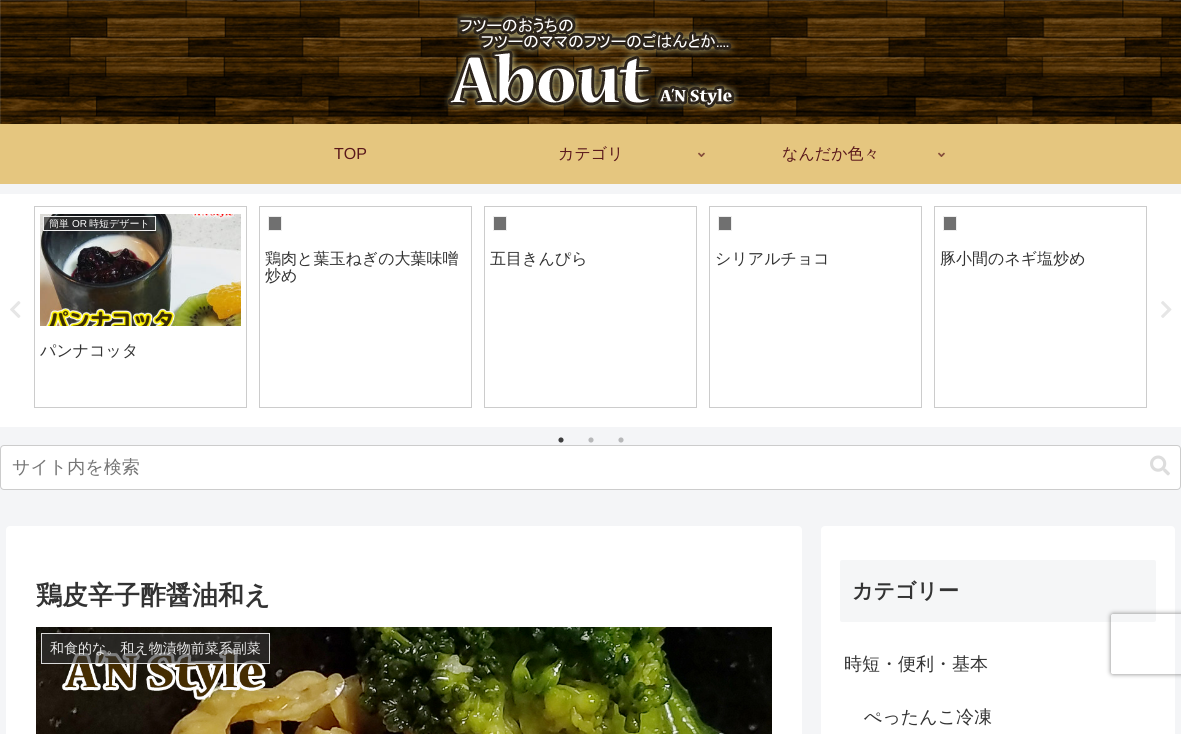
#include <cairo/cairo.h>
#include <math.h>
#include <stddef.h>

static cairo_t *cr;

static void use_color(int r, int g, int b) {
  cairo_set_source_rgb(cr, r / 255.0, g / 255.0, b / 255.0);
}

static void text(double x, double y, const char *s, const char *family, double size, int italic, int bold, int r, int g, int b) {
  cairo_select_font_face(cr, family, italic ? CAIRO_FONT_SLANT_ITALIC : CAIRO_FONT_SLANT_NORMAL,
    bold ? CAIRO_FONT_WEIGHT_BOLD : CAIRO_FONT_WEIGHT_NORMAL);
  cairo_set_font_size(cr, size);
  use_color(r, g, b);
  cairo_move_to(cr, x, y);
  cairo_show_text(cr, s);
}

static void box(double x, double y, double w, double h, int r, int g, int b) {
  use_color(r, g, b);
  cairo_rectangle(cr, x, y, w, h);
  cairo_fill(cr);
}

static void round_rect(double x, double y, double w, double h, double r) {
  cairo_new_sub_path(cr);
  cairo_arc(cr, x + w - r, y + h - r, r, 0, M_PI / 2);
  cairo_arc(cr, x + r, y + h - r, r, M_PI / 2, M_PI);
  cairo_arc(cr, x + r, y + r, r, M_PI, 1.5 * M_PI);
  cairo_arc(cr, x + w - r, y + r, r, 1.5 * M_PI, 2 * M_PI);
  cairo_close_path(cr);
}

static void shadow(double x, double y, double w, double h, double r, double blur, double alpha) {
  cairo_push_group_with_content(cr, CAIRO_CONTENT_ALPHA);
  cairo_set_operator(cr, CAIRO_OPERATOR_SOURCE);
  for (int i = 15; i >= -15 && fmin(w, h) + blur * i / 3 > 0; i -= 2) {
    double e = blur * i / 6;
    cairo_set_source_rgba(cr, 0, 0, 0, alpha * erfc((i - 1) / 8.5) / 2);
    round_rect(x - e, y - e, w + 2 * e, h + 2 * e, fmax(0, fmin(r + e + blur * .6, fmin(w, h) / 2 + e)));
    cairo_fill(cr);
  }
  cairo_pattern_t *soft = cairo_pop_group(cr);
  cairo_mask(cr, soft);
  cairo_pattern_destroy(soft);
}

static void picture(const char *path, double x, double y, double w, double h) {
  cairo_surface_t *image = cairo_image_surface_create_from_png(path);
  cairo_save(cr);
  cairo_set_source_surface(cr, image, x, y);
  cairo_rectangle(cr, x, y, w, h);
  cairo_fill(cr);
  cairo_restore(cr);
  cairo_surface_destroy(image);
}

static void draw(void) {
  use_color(244, 245, 247);
  cairo_paint(cr);
  picture("img_01.png", 0, 0, 1181, 124);
  picture("img_02.png", 444, 11, 295, 101);
  box(0, 124, 1181, 60, 229, 198, 127);
  picture("img_03.png", 698, 152, 7, 5);
  picture("img_03.png", 938, 152, 7, 5);
  box(0, 194, 1181, 233, 255, 255, 255);
  picture("img_04.png", 10, 301, 11, 17);
  cairo_rectangle(cr, 34.5, 206.5, 212, 201);
  use_color(204, 204, 204);
  cairo_set_line_width(cr, 1);
  cairo_stroke(cr);
  picture("img_05.png", 40, 214, 201, 112);
  cairo_set_source_rgba(cr, 0.2, 0.2, 0.2, 0.7);
  cairo_rectangle(cr, 43.5, 216.5, 112, 14);
  cairo_fill_preserve(cr);
  use_color(238, 238, 238);
  cairo_stroke(cr);
  cairo_rectangle(cr, 259.5, 206.5, 212, 201);
  use_color(204, 204, 204);
  cairo_stroke(cr);
  use_color(112, 112, 112);
  cairo_rectangle(cr, 268.5, 216.5, 13, 14);
  cairo_fill_preserve(cr);
  use_color(238, 238, 238);
  cairo_stroke(cr);
  cairo_rectangle(cr, 484.5, 206.5, 212, 201);
  use_color(204, 204, 204);
  cairo_stroke(cr);
  use_color(112, 112, 112);
  cairo_rectangle(cr, 493.5, 216.5, 13, 14);
  cairo_fill_preserve(cr);
  use_color(238, 238, 238);
  cairo_stroke(cr);
  cairo_rectangle(cr, 709.5, 206.5, 212, 201);
  use_color(204, 204, 204);
  cairo_stroke(cr);
  use_color(112, 112, 112);
  cairo_rectangle(cr, 718.5, 216.5, 13, 14);
  cairo_fill_preserve(cr);
  use_color(238, 238, 238);
  cairo_stroke(cr);
  cairo_rectangle(cr, 934.5, 206.5, 212, 201);
  use_color(204, 204, 204);
  cairo_stroke(cr);
  use_color(112, 112, 112);
  cairo_rectangle(cr, 943.5, 216.5, 13, 14);
  cairo_fill_preserve(cr);
  use_color(238, 238, 238);
  cairo_stroke(cr);
  picture("img_06.png", 1161, 301, 11, 17);
  picture("img_07.png", 558, 437, 6, 6);
  picture("img_08.png", 588, 437, 6, 6);
  picture("img_08.png", 618, 437, 6, 6);
  use_color(255, 255, 255);
  round_rect(0.5, 445.5, 1180, 44, 3.5);
  cairo_fill_preserve(cr);
  use_color(204, 204, 204);
  cairo_stroke(cr);
  picture("img_09.png", 1150, 455, 20, 21);
  use_color(255, 255, 255);
  round_rect(6, 526, 796, 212, 4);
  cairo_fill(cr);
  picture("img_10.png", 36, 627, 736, 107);
  cairo_set_source_rgba(cr, 0.2, 0.2, 0.2, 0.63);
  cairo_rectangle(cr, 41, 633, 229, 31);
  cairo_fill(cr);
  cairo_rectangle(cr, 41.5, 633.5, 228, 30);
  cairo_set_source_rgba(cr, 0.933, 0.933, 0.933, 0.9);
  cairo_stroke(cr);
  use_color(255, 255, 255);
  round_rect(821, 526, 354, 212, 4);
  cairo_fill(cr);
  use_color(245, 246, 247);
  round_rect(840, 560, 316, 62, 2);
  cairo_fill(cr);
  cairo_save(cr);
  cairo_set_fill_rule(cr, CAIRO_FILL_RULE_EVEN_ODD);
  cairo_new_path(cr);
  cairo_move_to(cr, 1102, 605);
  cairo_line_to(cr, 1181, 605);
  cairo_line_to(cr, 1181, 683);
  cairo_line_to(cr, 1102, 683);
  cairo_close_path(cr);
  cairo_move_to(cr, 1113, 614);
  cairo_line_to(cr, 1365, 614);
  cairo_curve_to(cr, 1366, 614, 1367, 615, 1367, 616);
  cairo_line_to(cr, 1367, 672);
  cairo_curve_to(cr, 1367, 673, 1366, 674, 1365, 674);
  cairo_line_to(cr, 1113, 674);
  cairo_curve_to(cr, 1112, 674, 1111, 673, 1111, 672);
  cairo_line_to(cr, 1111, 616);
  cairo_curve_to(cr, 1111, 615, 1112, 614, 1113, 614);
  cairo_close_path(cr);
  cairo_clip(cr);
  use_color(128, 128, 128);
  shadow(1111, 614, 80, 60, 2, 2.5, 1);
  cairo_restore(cr);
  text(334, 159, "TOP", "Liberation Sans", 16, 0, 0, 90, 24, 28);
  text(558, 159, "カテゴリ", "WenQuanYi Zen Hei Medium", 16, 0, 0, 90, 24, 28);
  text(782, 159, "なんだか色々", "WenQuanYi Zen Hei Medium", 16, 0, 0, 90, 24, 28);
  text(49, 227, "簡単", "WenQuanYi Zen Hei Medium", 10, 0, 0, 255, 255, 255);
  text(72, 227, "OR", "Liberation Sans", 10, 0, 0, 255, 255, 255);
  text(89, 227, "時短デザート", "WenQuanYi Zen Hei Medium", 10, 0, 0, 255, 255, 255);
  text(40, 356, "パンナコッタ", "WenQuanYi Zen Hei Medium", 16, 0, 0, 51, 51, 51);
  text(265, 264, "鶏肉と葉玉ねぎの大葉味噌", "WenQuanYi Zen Hei Medium", 16, 0, 0, 51, 51, 51);
  text(265, 281, "炒め", "WenQuanYi Zen Hei Medium", 16, 0, 0, 51, 51, 51);
  text(490, 264, "五目きんぴら", "WenQuanYi Zen Hei Medium", 16, 0, 0, 51, 51, 51);
  text(715, 264, "シリアルチョコ", "WenQuanYi Zen Hei Medium", 16, 0, 0, 51, 51, 51);
  text(940, 264, "豚小間のネギ塩炒め", "WenQuanYi Zen Hei Medium", 16, 0, 0, 51, 51, 51);
  text(12, 473, "サイト内を検索", "WenQuanYi Zen Hei Medium", 18, 0, 0, 117, 117, 117);
  text(36, 604, "鶏皮辛子酢醤油和え", "WenQuanYi Zen Hei", 26, 0, 1, 51, 51, 51);
  text(50, 653, "和食的な。和え物漬物前菜系副菜", "WenQuanYi Zen Hei Medium", 14, 0, 0, 234, 234, 234);
  text(852, 598, "カテゴリー", "WenQuanYi Zen Hei", 21, 0, 1, 51, 51, 51);
  text(844, 670, "時短・便利・基本", "WenQuanYi Zen Hei Medium", 18, 0, 0, 51, 51, 51);
  text(864, 723, "ぺったんこ冷凍", "WenQuanYi Zen Hei Medium", 18, 0, 0, 51, 51, 51);
}

int main(void) {
  cairo_surface_t *surface = cairo_image_surface_create(CAIRO_FORMAT_RGB24, 1181, 734);
  cr = cairo_create(surface);
  cairo_font_options_t *options = cairo_font_options_create();
  cairo_font_options_set_hint_metrics(options, CAIRO_HINT_METRICS_OFF);
  cairo_font_options_set_hint_style(options, CAIRO_HINT_STYLE_NONE);
  cairo_set_font_options(cr, options);
  cairo_set_miter_limit(cr, 4);
  draw();
  cairo_surface_write_to_png(surface, "out.png");
  cairo_font_options_destroy(options);
  cairo_destroy(cr);
  cairo_surface_destroy(surface);
  return 0;
}
